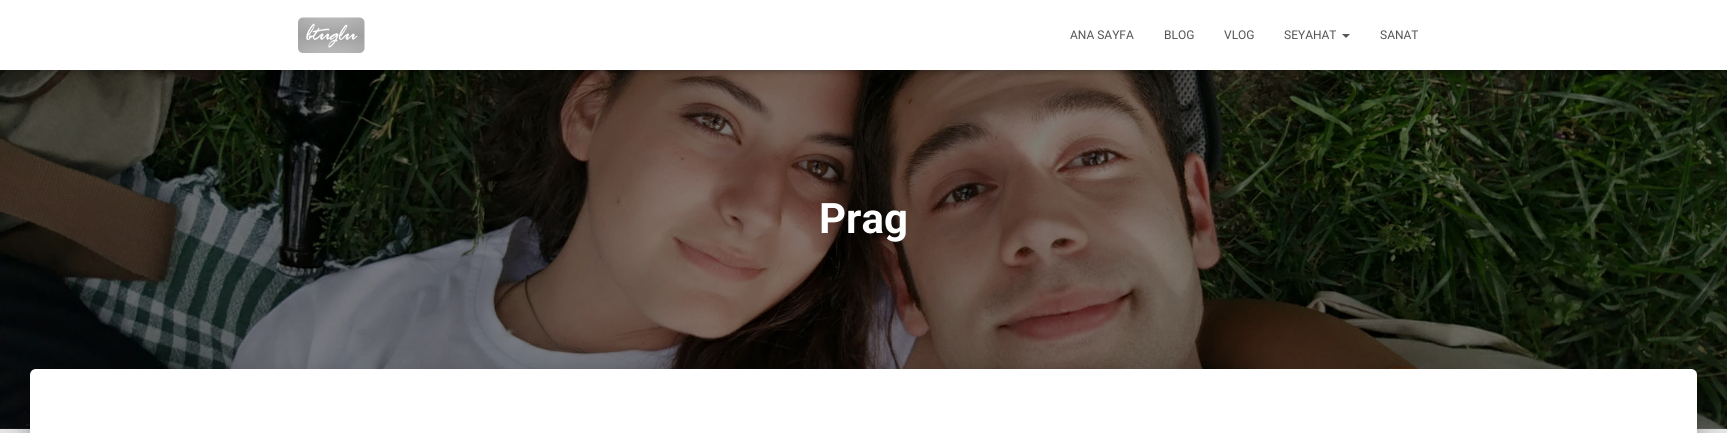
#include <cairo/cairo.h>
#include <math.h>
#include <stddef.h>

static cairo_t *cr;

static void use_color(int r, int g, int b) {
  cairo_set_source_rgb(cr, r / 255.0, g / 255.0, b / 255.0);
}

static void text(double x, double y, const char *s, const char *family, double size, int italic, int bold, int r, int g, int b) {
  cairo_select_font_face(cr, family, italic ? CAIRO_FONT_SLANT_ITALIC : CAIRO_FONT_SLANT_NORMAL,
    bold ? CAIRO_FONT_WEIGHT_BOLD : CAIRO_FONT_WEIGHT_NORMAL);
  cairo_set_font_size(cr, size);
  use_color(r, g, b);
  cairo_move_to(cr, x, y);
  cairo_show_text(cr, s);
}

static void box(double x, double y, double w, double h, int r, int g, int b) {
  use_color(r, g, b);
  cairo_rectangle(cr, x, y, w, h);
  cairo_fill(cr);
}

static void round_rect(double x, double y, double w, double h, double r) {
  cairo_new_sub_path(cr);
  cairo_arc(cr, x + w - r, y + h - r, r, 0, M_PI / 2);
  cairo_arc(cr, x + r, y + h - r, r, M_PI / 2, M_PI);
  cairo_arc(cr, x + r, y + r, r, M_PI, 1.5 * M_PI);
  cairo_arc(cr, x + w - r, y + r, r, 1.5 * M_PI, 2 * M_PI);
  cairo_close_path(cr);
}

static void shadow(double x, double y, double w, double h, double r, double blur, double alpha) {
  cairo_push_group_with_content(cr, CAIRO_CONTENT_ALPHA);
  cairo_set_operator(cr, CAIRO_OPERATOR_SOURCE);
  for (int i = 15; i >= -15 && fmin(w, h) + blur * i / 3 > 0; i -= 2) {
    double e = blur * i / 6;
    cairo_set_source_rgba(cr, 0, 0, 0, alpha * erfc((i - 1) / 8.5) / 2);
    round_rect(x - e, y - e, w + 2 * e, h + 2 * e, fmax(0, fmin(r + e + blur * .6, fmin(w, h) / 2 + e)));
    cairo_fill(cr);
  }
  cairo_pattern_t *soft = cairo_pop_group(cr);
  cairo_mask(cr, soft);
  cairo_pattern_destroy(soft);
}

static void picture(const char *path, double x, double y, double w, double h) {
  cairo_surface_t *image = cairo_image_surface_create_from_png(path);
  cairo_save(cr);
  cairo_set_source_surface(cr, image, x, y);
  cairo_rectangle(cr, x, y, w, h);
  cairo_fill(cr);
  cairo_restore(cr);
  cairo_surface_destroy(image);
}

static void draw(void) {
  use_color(229, 229, 229);
  cairo_paint(cr);
  picture("img_02.png", 0, 70, 1727, 359);
  use_color(0, 0, 0);
  shadow(2, 6, 1723, 66, 0, 2.5, 0.1);
  shadow(0, 1, 1727, 70, 0, 5, 0.12);
  shadow(6, 7, 1715, 58, 0, 5, 0.42);
  box(0, 0, 1727, 70, 255, 255, 255);
  picture("img_01.png", 298, 17, 67, 36);
  use_color(85, 85, 85);
  cairo_new_path(cr);
  cairo_move_to(cr, 1342, 34);
  cairo_line_to(cr, 1350, 34);
  cairo_line_to(cr, 1346, 38);
  cairo_close_path(cr);
  cairo_fill(cr);
  use_color(0, 0, 0);
  shadow(35, 382, 1657, 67, 1, 5, 0.2);
  shadow(25, 370, 1677, 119, 11, 15, 0.12);
  shadow(28, 383, 1671, 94, 8, 12, 0.14);
  use_color(255, 255, 255);
  cairo_new_path(cr);
  cairo_move_to(cr, 36, 369);
  cairo_line_to(cr, 1691, 369);
  cairo_curve_to(cr, 1694.5, 369, 1697, 371.5, 1697, 375);
  cairo_line_to(cr, 1697, 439);
  cairo_line_to(cr, 30, 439);
  cairo_line_to(cr, 30, 375);
  cairo_curve_to(cr, 30, 371.5, 32.5, 369, 36, 369);
  cairo_close_path(cr);
  cairo_fill(cr);
  text(1070, 39, "ANA SAYFA", "Roboto", 12, 0, 0, 85, 85, 85);
  text(1164, 39, "BLOG", "Roboto", 12, 0, 0, 85, 85, 85);
  text(1224, 39, "VLOG", "Roboto", 12, 0, 0, 85, 85, 85);
  text(1284, 39, "SEYAHAT", "Roboto", 12, 0, 0, 85, 85, 85);
  text(1380, 39, "SANAT", "Roboto", 12, 0, 0, 85, 85, 85);
  text(819, 233, "Prag", "Roboto", 42, 0, 1, 255, 255, 255);
}

int main(void) {
  cairo_surface_t *surface = cairo_image_surface_create(CAIRO_FORMAT_RGB24, 1727, 433);
  cr = cairo_create(surface);
  cairo_font_options_t *options = cairo_font_options_create();
  cairo_font_options_set_hint_metrics(options, CAIRO_HINT_METRICS_OFF);
  cairo_font_options_set_hint_style(options, CAIRO_HINT_STYLE_NONE);
  cairo_set_font_options(cr, options);
  cairo_set_miter_limit(cr, 4);
  draw();
  cairo_surface_write_to_png(surface, "out.png");
  cairo_font_options_destroy(options);
  cairo_destroy(cr);
  cairo_surface_destroy(surface);
  return 0;
}
